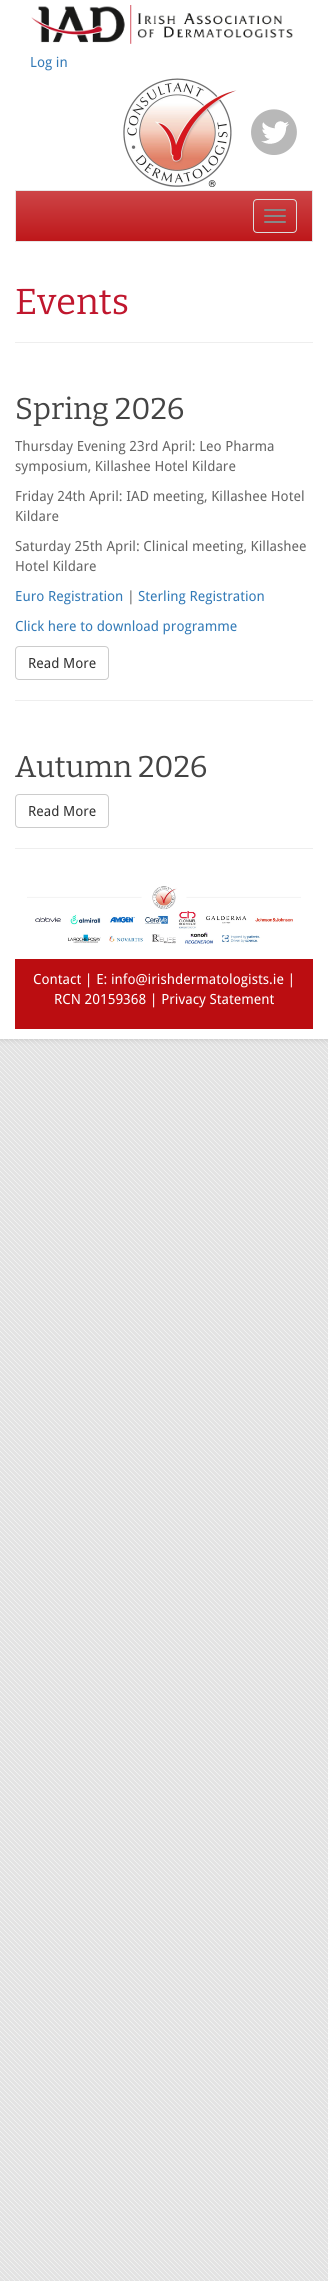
#include <cairo/cairo.h>
#include <math.h>
#include <stddef.h>

static cairo_t *cr;

static void use_color(int r, int g, int b) {
  cairo_set_source_rgb(cr, r / 255.0, g / 255.0, b / 255.0);
}

static void text(double x, double y, const char *s, const char *family, double size, int italic, int bold, int r, int g, int b) {
  cairo_select_font_face(cr, family, italic ? CAIRO_FONT_SLANT_ITALIC : CAIRO_FONT_SLANT_NORMAL,
    bold ? CAIRO_FONT_WEIGHT_BOLD : CAIRO_FONT_WEIGHT_NORMAL);
  cairo_set_font_size(cr, size);
  use_color(r, g, b);
  cairo_move_to(cr, x, y);
  cairo_show_text(cr, s);
}

static void box(double x, double y, double w, double h, int r, int g, int b) {
  use_color(r, g, b);
  cairo_rectangle(cr, x, y, w, h);
  cairo_fill(cr);
}

static void round_rect(double x, double y, double w, double h, double r) {
  cairo_new_sub_path(cr);
  cairo_arc(cr, x + w - r, y + h - r, r, 0, M_PI / 2);
  cairo_arc(cr, x + r, y + h - r, r, M_PI / 2, M_PI);
  cairo_arc(cr, x + r, y + r, r, M_PI, 1.5 * M_PI);
  cairo_arc(cr, x + w - r, y + r, r, 1.5 * M_PI, 2 * M_PI);
  cairo_close_path(cr);
}

static void shadow(double x, double y, double w, double h, double r, double blur, double alpha) {
  cairo_push_group_with_content(cr, CAIRO_CONTENT_ALPHA);
  cairo_set_operator(cr, CAIRO_OPERATOR_SOURCE);
  for (int i = 15; i >= -15 && fmin(w, h) + blur * i / 3 > 0; i -= 2) {
    double e = blur * i / 6;
    cairo_set_source_rgba(cr, 0, 0, 0, alpha * erfc((i - 1) / 8.5) / 2);
    round_rect(x - e, y - e, w + 2 * e, h + 2 * e, fmax(0, fmin(r + e + blur * .6, fmin(w, h) / 2 + e)));
    cairo_fill(cr);
  }
  cairo_pattern_t *soft = cairo_pop_group(cr);
  cairo_mask(cr, soft);
  cairo_pattern_destroy(soft);
}

static void picture(const char *path, double x, double y, double w, double h) {
  cairo_surface_t *image = cairo_image_surface_create_from_png(path);
  cairo_save(cr);
  cairo_set_source_surface(cr, image, x, y);
  cairo_rectangle(cr, x, y, w, h);
  cairo_fill(cr);
  cairo_restore(cr);
  cairo_surface_destroy(image);
}

static void draw(void) {
  cairo_pattern_t *gradient;
  use_color(255, 255, 255);
  cairo_paint(cr);
  picture("img_01.png", 0, 1039, 328, 1242);
  use_color(42, 42, 42);
  shadow(0, 0, 328, 1039, 0, 3, 0.2);
  box(0, 0, 328, 1039, 255, 255, 255);
  picture("img_02.png", 31, 5, 262, 39);
  picture("img_03.png", 123, 78, 114, 109);
  picture("img_04.png", 251, 109, 46, 46);
  gradient = cairo_pattern_create_linear(164, 191, 164, 241);
  cairo_pattern_add_color_stop_rgba(gradient, 0, 0.804, 0.271, 0.278, 1);
  cairo_pattern_add_color_stop_rgba(gradient, 1, 0.745, 0.09, 0.102, 1);
  cairo_set_source(cr, gradient);
  cairo_pattern_destroy(gradient);
  cairo_rectangle(cr, 16, 191, 296, 50);
  cairo_fill(cr);
  cairo_rectangle(cr, 15.5, 190.5, 297, 51);
  use_color(231, 231, 231);
  cairo_set_line_width(cr, 1);
  cairo_stroke(cr);
  round_rect(253.5, 199.5, 43, 33, 3.5);
  use_color(221, 221, 221);
  cairo_stroke(cr);
  use_color(136, 136, 136);
  round_rect(264, 209, 22, 2, 1);
  cairo_fill(cr);
  round_rect(264, 215, 22, 2, 1);
  cairo_fill(cr);
  round_rect(264, 221, 22, 2, 1);
  cairo_fill(cr);
  box(15, 342, 298, 1, 238, 238, 238);
  round_rect(15.5, 646.5, 93, 33, 3.5);
  use_color(204, 204, 204);
  cairo_stroke(cr);
  box(15, 700, 298, 1, 238, 238, 238);
  round_rect(15.5, 794.5, 93, 33, 3.5);
  use_color(204, 204, 204);
  cairo_stroke(cr);
  box(15, 848, 298, 1, 238, 238, 238);
  picture("img_05.png", 27, 886, 274, 58);
  box(15, 959, 298, 70, 187, 13, 17);
  text(30, 67, "Log in", "Droid Sans", 14, 0, 0, 51, 122, 183);
  text(15, 314, "Events", "Bitter", 36, 0, 0, 192, 23, 46);
  text(15, 419, "Spring 2026", "Bitter", 30, 0, 0, 68, 68, 68);
  text(15, 451, "Thursday Evening 23rd April: Leo Pharma", "Droid Sans", 14, 0, 0, 102, 102, 102);
  text(15, 471, "symposium, Killashee Hotel Kildare", "Droid Sans", 14, 0, 0, 102, 102, 102);
  text(15, 501, "Friday 24th April: IAD meeting, Killashee Hotel", "Droid Sans", 14, 0, 0, 102, 102, 102);
  text(15, 521, "Kildare", "Droid Sans", 14, 0, 0, 102, 102, 102);
  text(15, 551, "Saturday 25th April: Clinical meeting, Killashee", "Droid Sans", 14, 0, 0, 102, 102, 102);
  text(15, 571, "Hotel Kildare", "Droid Sans", 14, 0, 0, 102, 102, 102);
  text(15, 601, "Euro Registration", "Droid Sans", 14, 0, 0, 51, 122, 183);
  text(127, 601, "|", "Droid Sans", 14, 0, 0, 102, 102, 102);
  text(138, 601, "Sterling Registration", "Droid Sans", 14, 0, 0, 51, 122, 183);
  text(15, 631, "Click here to download programme", "Droid Sans", 14, 0, 0, 51, 122, 183);
  text(28, 668, "Read More", "Droid Sans", 14, 0, 0, 51, 51, 51);
  text(15, 777, "Autumn 2026", "Bitter", 30, 0, 0, 68, 68, 68);
  text(28, 816, "Read More", "Droid Sans", 14, 0, 0, 51, 51, 51);
  text(33, 984, "Contact | E: info@irishdermatologists.ie |", "Droid Sans", 14, 0, 0, 255, 255, 255);
  text(54, 1004, "RCN 20159368 | Privacy Statement", "Droid Sans", 14, 0, 0, 255, 255, 255);
}

int main(void) {
  cairo_surface_t *surface = cairo_image_surface_create(CAIRO_FORMAT_RGB24, 328, 2281);
  cr = cairo_create(surface);
  cairo_font_options_t *options = cairo_font_options_create();
  cairo_font_options_set_hint_metrics(options, CAIRO_HINT_METRICS_OFF);
  cairo_font_options_set_hint_style(options, CAIRO_HINT_STYLE_NONE);
  cairo_set_font_options(cr, options);
  cairo_set_miter_limit(cr, 4);
  draw();
  cairo_surface_write_to_png(surface, "out.png");
  cairo_font_options_destroy(options);
  cairo_destroy(cr);
  cairo_surface_destroy(surface);
  return 0;
}
